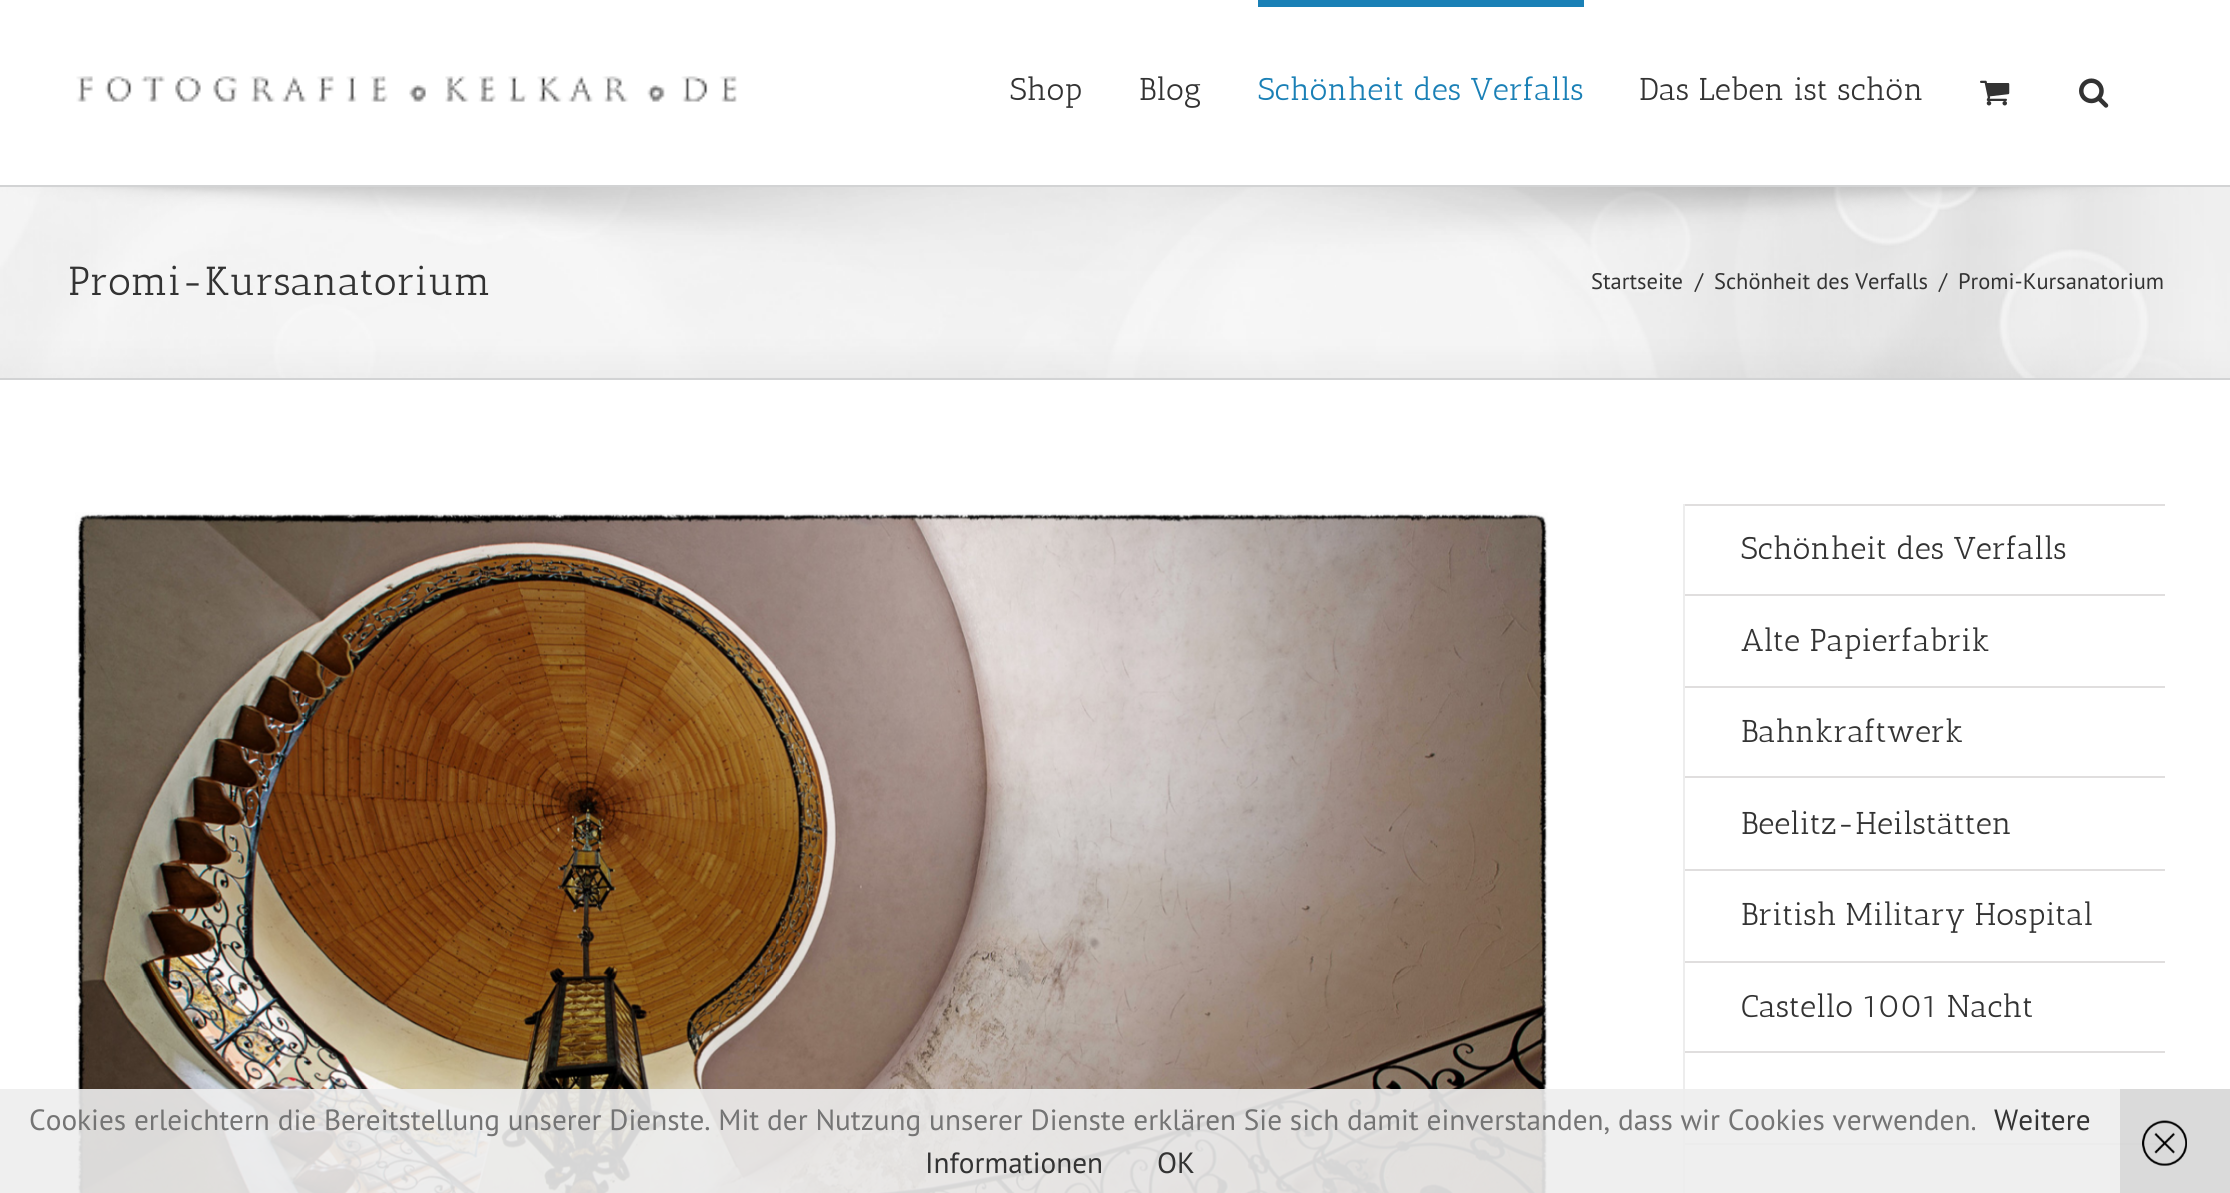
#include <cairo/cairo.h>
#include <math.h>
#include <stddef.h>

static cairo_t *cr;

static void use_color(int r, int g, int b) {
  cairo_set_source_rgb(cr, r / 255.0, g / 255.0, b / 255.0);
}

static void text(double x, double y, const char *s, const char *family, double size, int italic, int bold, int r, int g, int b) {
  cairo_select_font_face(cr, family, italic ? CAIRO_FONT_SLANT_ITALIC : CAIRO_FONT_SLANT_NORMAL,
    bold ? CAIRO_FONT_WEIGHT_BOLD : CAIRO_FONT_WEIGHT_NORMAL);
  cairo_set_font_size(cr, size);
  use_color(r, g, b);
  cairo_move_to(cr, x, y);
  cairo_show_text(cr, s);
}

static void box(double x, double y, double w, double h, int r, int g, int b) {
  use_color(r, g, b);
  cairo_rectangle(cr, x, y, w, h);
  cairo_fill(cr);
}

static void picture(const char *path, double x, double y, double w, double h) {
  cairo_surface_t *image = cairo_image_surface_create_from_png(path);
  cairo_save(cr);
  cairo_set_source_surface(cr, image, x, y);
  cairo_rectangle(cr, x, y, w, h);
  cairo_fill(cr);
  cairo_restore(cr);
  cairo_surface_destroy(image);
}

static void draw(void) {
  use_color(246, 246, 246);
  cairo_paint(cr);
  box(0, 0, 2230, 185, 255, 255, 255);
  picture("img_01.png", 76, 76, 661, 26);
  box(1258, 0, 326, 7, 26, 128, 182);
  picture("img_02.png", 1980, 80, 30, 26);
  picture("img_03.png", 2079, 78, 30, 30);
  picture("img_04.png", 0, 187, 2230, 191);
  box(0, 185, 2230, 2, 210, 211, 212);
  box(0, 378, 2230, 2, 210, 211, 212);
  box(0, 380, 2230, 813, 255, 255, 255);
  picture("img_05.png", 75, 512, 1473, 681);
  box(1683, 504, 482, 2, 224, 222, 222);
  box(1683, 504, 2, 689, 237, 237, 237);
  box(1685, 594, 480, 2, 224, 222, 222);
  box(1685, 686, 480, 2, 224, 222, 222);
  box(1685, 776, 480, 2, 224, 222, 222);
  box(1685, 869, 480, 2, 224, 222, 222);
  box(1685, 961, 480, 2, 224, 222, 222);
  box(1685, 1051, 480, 2, 224, 222, 222);
  box(1685, 1143, 480, 2, 224, 222, 222);
  cairo_set_source_rgba(cr, 0.933, 0.933, 0.933, 0.9);
  cairo_rectangle(cr, 0, 1089, 2230, 104);
  cairo_fill(cr);
  cairo_set_source_rgba(cr, 0.8, 0.8, 0.8, 0.6);
  cairo_rectangle(cr, 2120, 1089, 110, 104);
  cairo_fill(cr);
  picture("img_06.png", 2142, 1120, 45, 46);
  text(1010, 100, "Shop", "Antic Slab", 31.5, 0, 0, 51, 51, 51);
  text(1139, 100, "Blog", "Antic Slab", 31.5, 0, 0, 51, 51, 51);
  text(1258, 100, "Schönheit des Verfalls", "Antic Slab", 31.5, 0, 0, 26, 128, 182);
  text(1639, 100, "Das Leben ist schön", "Antic Slab", 31.5, 0, 0, 51, 51, 51);
  text(68, 295, "Promi-Kursanatorium", "Antic Slab", 40.5, 0, 0, 51, 51, 51);
  text(1591, 289, "Startseite", "PT Sans", 22.5, 0, 0, 51, 51, 51);
  text(1695, 289, "/", "PT Sans", 22.5, 0, 0, 51, 51, 51);
  text(1714, 289, "Schönheit des Verfalls", "PT Sans", 22.5, 0, 0, 51, 51, 51);
  text(1939, 289, "/", "PT Sans", 22.5, 0, 0, 51, 51, 51);
  text(1958, 289, "Promi-Kursanatorium", "PT Sans", 22.5, 0, 0, 51, 51, 51);
  text(1741, 559, "Schönheit des Verfalls", "Antic Slab", 31.5, 0, 0, 51, 51, 51);
  text(1741, 651, "Alte Papierfabrik", "Antic Slab", 31.5, 0, 0, 51, 51, 51);
  text(1741, 742, "Bahnkraftwerk", "Antic Slab", 31.5, 0, 0, 51, 51, 51);
  text(1741, 834, "Beelitz-Heilstätten", "Antic Slab", 31.5, 0, 0, 51, 51, 51);
  text(1741, 925, "British Military Hospital", "Antic Slab", 31.5, 0, 0, 51, 51, 51);
  text(1741, 1017, "Castello 1001 Nacht", "Antic Slab", 31.5, 0, 0, 51, 51, 51);
  text(29, 1130, "Cookies erleichtern die Bereitstellung unserer Dienste. Mit der Nutzung unserer Dienste erklären Sie sich damit einverstanden, dass wir Cookies verwenden.", "PT Sans", 29.25, 0, 0, 116, 116, 116);
  text(1994, 1130, "Weitere", "PT Sans", 29.25, 0, 0, 51, 51, 51);
  text(925, 1173, "Informationen", "PT Sans", 29.25, 0, 0, 51, 51, 51);
  text(1157, 1173, "OK", "PT Sans", 29.25, 0, 0, 51, 51, 51);
}

int main(void) {
  cairo_surface_t *surface = cairo_image_surface_create(CAIRO_FORMAT_RGB24, 2230, 1193);
  cr = cairo_create(surface);
  cairo_font_options_t *options = cairo_font_options_create();
  cairo_font_options_set_hint_metrics(options, CAIRO_HINT_METRICS_OFF);
  cairo_font_options_set_hint_style(options, CAIRO_HINT_STYLE_NONE);
  cairo_set_font_options(cr, options);
  cairo_set_miter_limit(cr, 4);
  draw();
  cairo_surface_write_to_png(surface, "out.png");
  cairo_font_options_destroy(options);
  cairo_destroy(cr);
  cairo_surface_destroy(surface);
  return 0;
}
